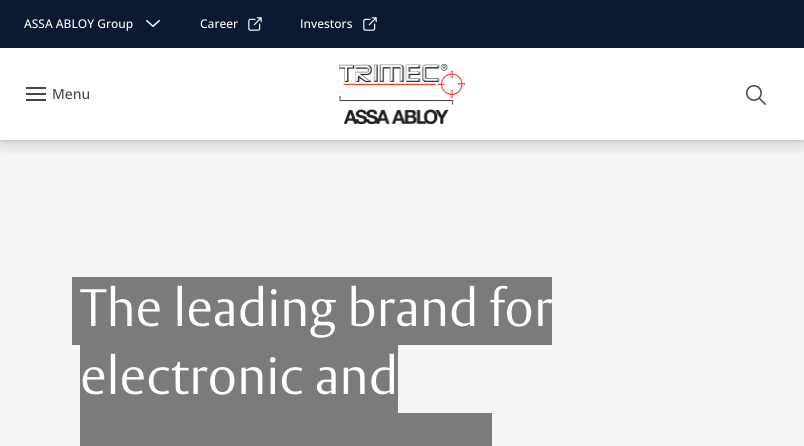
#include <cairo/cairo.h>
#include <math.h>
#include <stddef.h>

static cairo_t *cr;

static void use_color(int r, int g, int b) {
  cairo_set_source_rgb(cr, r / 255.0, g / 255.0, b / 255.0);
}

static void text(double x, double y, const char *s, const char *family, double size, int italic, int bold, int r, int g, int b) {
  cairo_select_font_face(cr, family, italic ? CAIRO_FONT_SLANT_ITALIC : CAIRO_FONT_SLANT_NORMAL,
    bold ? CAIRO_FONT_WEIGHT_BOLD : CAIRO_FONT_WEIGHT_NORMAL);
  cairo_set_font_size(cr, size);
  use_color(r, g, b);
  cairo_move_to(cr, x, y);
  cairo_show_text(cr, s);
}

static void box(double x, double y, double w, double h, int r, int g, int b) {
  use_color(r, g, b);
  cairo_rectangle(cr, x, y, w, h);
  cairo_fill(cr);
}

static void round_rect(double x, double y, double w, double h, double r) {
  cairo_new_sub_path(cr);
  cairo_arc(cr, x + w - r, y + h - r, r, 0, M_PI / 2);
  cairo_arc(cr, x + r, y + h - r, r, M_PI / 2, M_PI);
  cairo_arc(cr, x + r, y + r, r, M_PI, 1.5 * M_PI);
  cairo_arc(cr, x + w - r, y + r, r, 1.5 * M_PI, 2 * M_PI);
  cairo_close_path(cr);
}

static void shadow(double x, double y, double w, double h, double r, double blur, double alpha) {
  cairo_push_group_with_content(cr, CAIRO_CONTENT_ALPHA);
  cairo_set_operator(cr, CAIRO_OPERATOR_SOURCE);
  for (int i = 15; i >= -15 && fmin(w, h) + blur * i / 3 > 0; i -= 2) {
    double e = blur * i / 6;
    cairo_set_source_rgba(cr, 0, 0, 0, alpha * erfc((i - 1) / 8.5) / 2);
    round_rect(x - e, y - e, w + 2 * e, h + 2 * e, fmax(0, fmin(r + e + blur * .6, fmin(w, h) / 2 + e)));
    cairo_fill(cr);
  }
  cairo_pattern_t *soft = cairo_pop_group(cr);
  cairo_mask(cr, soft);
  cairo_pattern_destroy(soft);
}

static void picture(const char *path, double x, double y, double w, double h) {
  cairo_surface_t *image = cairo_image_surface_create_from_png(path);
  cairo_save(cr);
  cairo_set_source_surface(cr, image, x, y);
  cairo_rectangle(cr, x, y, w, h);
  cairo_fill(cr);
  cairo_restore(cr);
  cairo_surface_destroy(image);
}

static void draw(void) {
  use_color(245, 245, 245);
  cairo_paint(cr);
  box(0, 0, 804, 48, 11, 26, 49);
  picture("img_01.png", 146, 20, 14, 7);
  picture("img_02.png", 248, 17, 14, 14);
  picture("img_02.png", 363, 17, 14, 14);
  box(0, 48, 804, 92, 255, 255, 255);
  box(26, 87, 20, 2, 70, 70, 70);
  box(26, 93, 20, 2, 70, 70, 70);
  box(26, 99, 20, 2, 70, 70, 70);
  picture("img_03.png", 339, 64, 126, 60);
  cairo_save(cr);
  cairo_set_fill_rule(cr, CAIRO_FILL_RULE_EVEN_ODD);
  cairo_new_path(cr);
  cairo_move_to(cr, 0, 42);
  cairo_line_to(cr, 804, 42);
  cairo_line_to(cr, 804, 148);
  cairo_line_to(cr, 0, 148);
  cairo_close_path(cr);
  cairo_move_to(cr, 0, 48);
  cairo_line_to(cr, 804, 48);
  cairo_line_to(cr, 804, 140);
  cairo_line_to(cr, 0, 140);
  cairo_close_path(cr);
  cairo_clip(cr);
  use_color(0, 0, 0);
  shadow(0, 49, 804, 92, 0, 2, 0.15);
  cairo_restore(cr);
  cairo_save(cr);
  cairo_rectangle(cr, 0, 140, 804, 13);
  cairo_clip(cr);
  use_color(0, 0, 0);
  shadow(0, 56, 804, 92, 0, 6, 0.1);
  cairo_restore(cr);
  picture("img_04.png", 746, 85, 20, 20);
  box(72, 277, 480, 68, 123, 123, 123);
  box(80, 345, 318, 68, 123, 123, 123);
  box(80, 413, 412, 33, 123, 123, 123);
  text(24, 28, "ASSA ABLOY Group", "Open Sans Medium", 12, 0, 0, 255, 255, 255);
  text(200, 28, "Career", "Open Sans Medium", 12, 0, 0, 255, 255, 255);
  text(300, 28, "Investors", "Open Sans Medium", 12, 0, 0, 255, 255, 255);
  text(52, 99, "Menu", "Open Sans Medium", 14, 0, 0, 70, 70, 70);
  text(80, 326, "The leading brand for", "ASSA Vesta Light", 52, 0, 0, 255, 255, 255);
  text(80, 394, "electronic and", "ASSA Vesta Light", 52, 0, 0, 255, 255, 255);
}

int main(void) {
  cairo_surface_t *surface = cairo_image_surface_create(CAIRO_FORMAT_RGB24, 804, 446);
  cr = cairo_create(surface);
  cairo_font_options_t *options = cairo_font_options_create();
  cairo_font_options_set_hint_metrics(options, CAIRO_HINT_METRICS_OFF);
  cairo_font_options_set_hint_style(options, CAIRO_HINT_STYLE_NONE);
  cairo_set_font_options(cr, options);
  cairo_set_miter_limit(cr, 4);
  draw();
  cairo_surface_write_to_png(surface, "out.png");
  cairo_font_options_destroy(options);
  cairo_destroy(cr);
  cairo_surface_destroy(surface);
  return 0;
}
